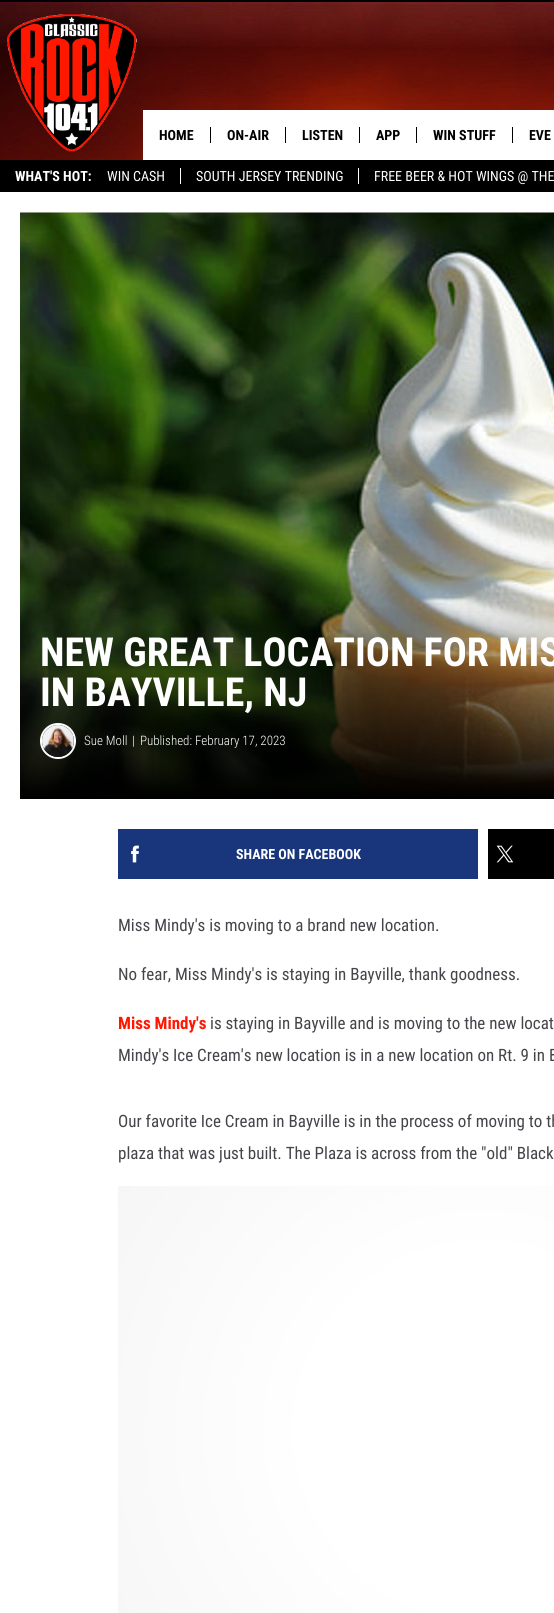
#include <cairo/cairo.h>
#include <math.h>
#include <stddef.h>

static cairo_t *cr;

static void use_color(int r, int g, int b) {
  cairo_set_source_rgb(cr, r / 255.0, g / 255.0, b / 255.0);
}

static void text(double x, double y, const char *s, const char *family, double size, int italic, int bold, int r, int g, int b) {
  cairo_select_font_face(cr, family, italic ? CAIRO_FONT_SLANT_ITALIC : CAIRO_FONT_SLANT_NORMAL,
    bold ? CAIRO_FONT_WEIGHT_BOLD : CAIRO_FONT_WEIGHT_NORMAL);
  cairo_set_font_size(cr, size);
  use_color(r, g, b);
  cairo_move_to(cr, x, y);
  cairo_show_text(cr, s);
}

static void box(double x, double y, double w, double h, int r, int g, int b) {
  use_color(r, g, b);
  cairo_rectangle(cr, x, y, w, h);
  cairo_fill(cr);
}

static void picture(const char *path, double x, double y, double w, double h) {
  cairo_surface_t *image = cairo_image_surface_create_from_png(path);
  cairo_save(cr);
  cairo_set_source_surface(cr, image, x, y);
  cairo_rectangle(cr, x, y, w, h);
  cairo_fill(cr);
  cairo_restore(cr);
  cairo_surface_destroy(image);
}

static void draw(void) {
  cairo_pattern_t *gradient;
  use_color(255, 255, 255);
  cairo_paint(cr);
  picture("img_01.png", 0, 0, 554, 160);
  picture("img_02.png", 7, 14, 130, 138);
  box(143, 110, 411, 50, 255, 255, 255);
  box(210, 127, 1, 16, 0, 0, 0);
  box(285, 127, 1, 16, 0, 0, 0);
  box(359, 127, 1, 16, 0, 0, 0);
  box(416, 127, 1, 16, 0, 0, 0);
  box(512, 127, 1, 16, 0, 0, 0);
  box(0, 160, 554, 32, 0, 0, 0);
  box(180, 168, 1, 16, 255, 255, 255);
  box(358, 168, 1, 16, 255, 255, 255);
  gradient = cairo_pattern_create_radial(483, 521, 0, 483, 521, 556);
  cairo_pattern_add_color_stop_rgba(gradient, 0.4, 1, 1, 1, 1);
  cairo_pattern_add_color_stop_rgba(gradient, 1, 0.965, 0.965, 0.969, 1);
  cairo_set_source(cr, gradient);
  cairo_pattern_destroy(gradient);
  cairo_rectangle(cr, 20, 212, 534, 1);
  cairo_fill(cr);
  picture("img_03.png", 20, 212, 534, 587);
  cairo_arc(cr, 58, 741, 17, 0, 2 * M_PI);
  use_color(255, 255, 255);
  cairo_stroke(cr);
  picture("img_04.png", 42, 725, 32, 32);
  box(118, 829, 360, 50, 25, 54, 124);
  picture("img_05.png", 131, 845, 8, 18);
  box(488, 829, 66, 50, 0, 0, 0);
  picture("img_06.png", 496, 845, 18, 18);
  gradient = cairo_pattern_create_radial(483, 1430, 0, 483, 1430, 439);
  cairo_pattern_add_color_stop_rgba(gradient, 0.4, 1, 1, 1, 1);
  cairo_pattern_add_color_stop_rgba(gradient, 1, 0.965, 0.965, 0.969, 1);
  cairo_set_source(cr, gradient);
  cairo_pattern_destroy(gradient);
  cairo_rectangle(cr, 118, 1186, 436, 427);
  cairo_fill(cr);
  text(159, 140, "HOME", "Roboto Condensed", 14, 0, 1, 0, 0, 0);
  text(227, 140, "ON-AIR", "Roboto Condensed", 14, 0, 1, 0, 0, 0);
  text(302, 140, "LISTEN", "Roboto Condensed", 14, 0, 1, 0, 0, 0);
  text(376, 140, "APP", "Roboto Condensed", 14, 0, 1, 0, 0, 0);
  text(433, 140, "WIN STUFF", "Roboto Condensed", 14, 0, 1, 0, 0, 0);
  text(529, 140, "EVE", "Roboto Condensed", 14, 0, 1, 0, 0, 0);
  text(15, 181, "WHAT'S HOT:", "Roboto Condensed", 14, 0, 1, 255, 255, 255);
  text(107, 181, "WIN CASH", "Roboto Condensed", 14, 0, 0, 255, 255, 255);
  text(196, 181, "SOUTH JERSEY TRENDING", "Roboto Condensed", 14, 0, 0, 255, 255, 255);
  text(374, 181, "FREE BEER & HOT WINGS @ THE", "Roboto Condensed", 14, 0, 0, 255, 255, 255);
  text(40, 666, "NEW GREAT LOCATION FOR MIS", "Roboto Condensed", 40, 0, 1, 255, 255, 255);
  text(40, 706, "IN BAYVILLE, NJ", "Roboto Condensed", 40, 0, 1, 255, 255, 255);
  text(84, 745, "Sue Moll", "Roboto Condensed Light", 13, 0, 0, 255, 255, 255);
  text(132, 745, "|", "Roboto Condensed Light", 13, 0, 0, 255, 255, 255);
  text(140, 745, "Published: February 17, 2023", "Roboto Condensed Light", 13, 0, 0, 255, 255, 255);
  text(236, 859, "SHARE ON FACEBOOK", "Roboto Condensed", 14, 0, 1, 255, 255, 255);
  text(118, 931, "Miss Mindy's is moving to a brand new location.", "Roboto Condensed", 17, 0, 0, 69, 68, 74);
  text(118, 980, "No fear, Miss Mindy's is staying in Bayville, thank goodness.", "Roboto Condensed", 17, 0, 0, 69, 68, 74);
  text(118, 1029, "Miss Mindy's", "Roboto Condensed", 17, 0, 1, 255, 23, 0);
  text(210, 1029, "is staying in Bayville and is moving to the new locat", "Roboto Condensed", 17, 0, 0, 69, 68, 74);
  text(118, 1061, "Mindy's Ice Cream's new location is in a new location on Rt. 9 in B", "Roboto Condensed", 17, 0, 0, 69, 68, 74);
  text(118, 1127, "Our favorite Ice Cream in Bayville is in the process of moving to th", "Roboto Condensed", 17, 0, 0, 69, 68, 74);
  text(118, 1159, "plaza that was just built. The Plaza is across from the \"old\" Black", "Roboto Condensed", 17, 0, 0, 69, 68, 74);
}

int main(void) {
  cairo_surface_t *surface = cairo_image_surface_create(CAIRO_FORMAT_RGB24, 554, 1613);
  cr = cairo_create(surface);
  cairo_font_options_t *options = cairo_font_options_create();
  cairo_font_options_set_hint_metrics(options, CAIRO_HINT_METRICS_OFF);
  cairo_font_options_set_hint_style(options, CAIRO_HINT_STYLE_NONE);
  cairo_set_font_options(cr, options);
  cairo_set_miter_limit(cr, 4);
  draw();
  cairo_surface_write_to_png(surface, "out.png");
  cairo_font_options_destroy(options);
  cairo_destroy(cr);
  cairo_surface_destroy(surface);
  return 0;
}
